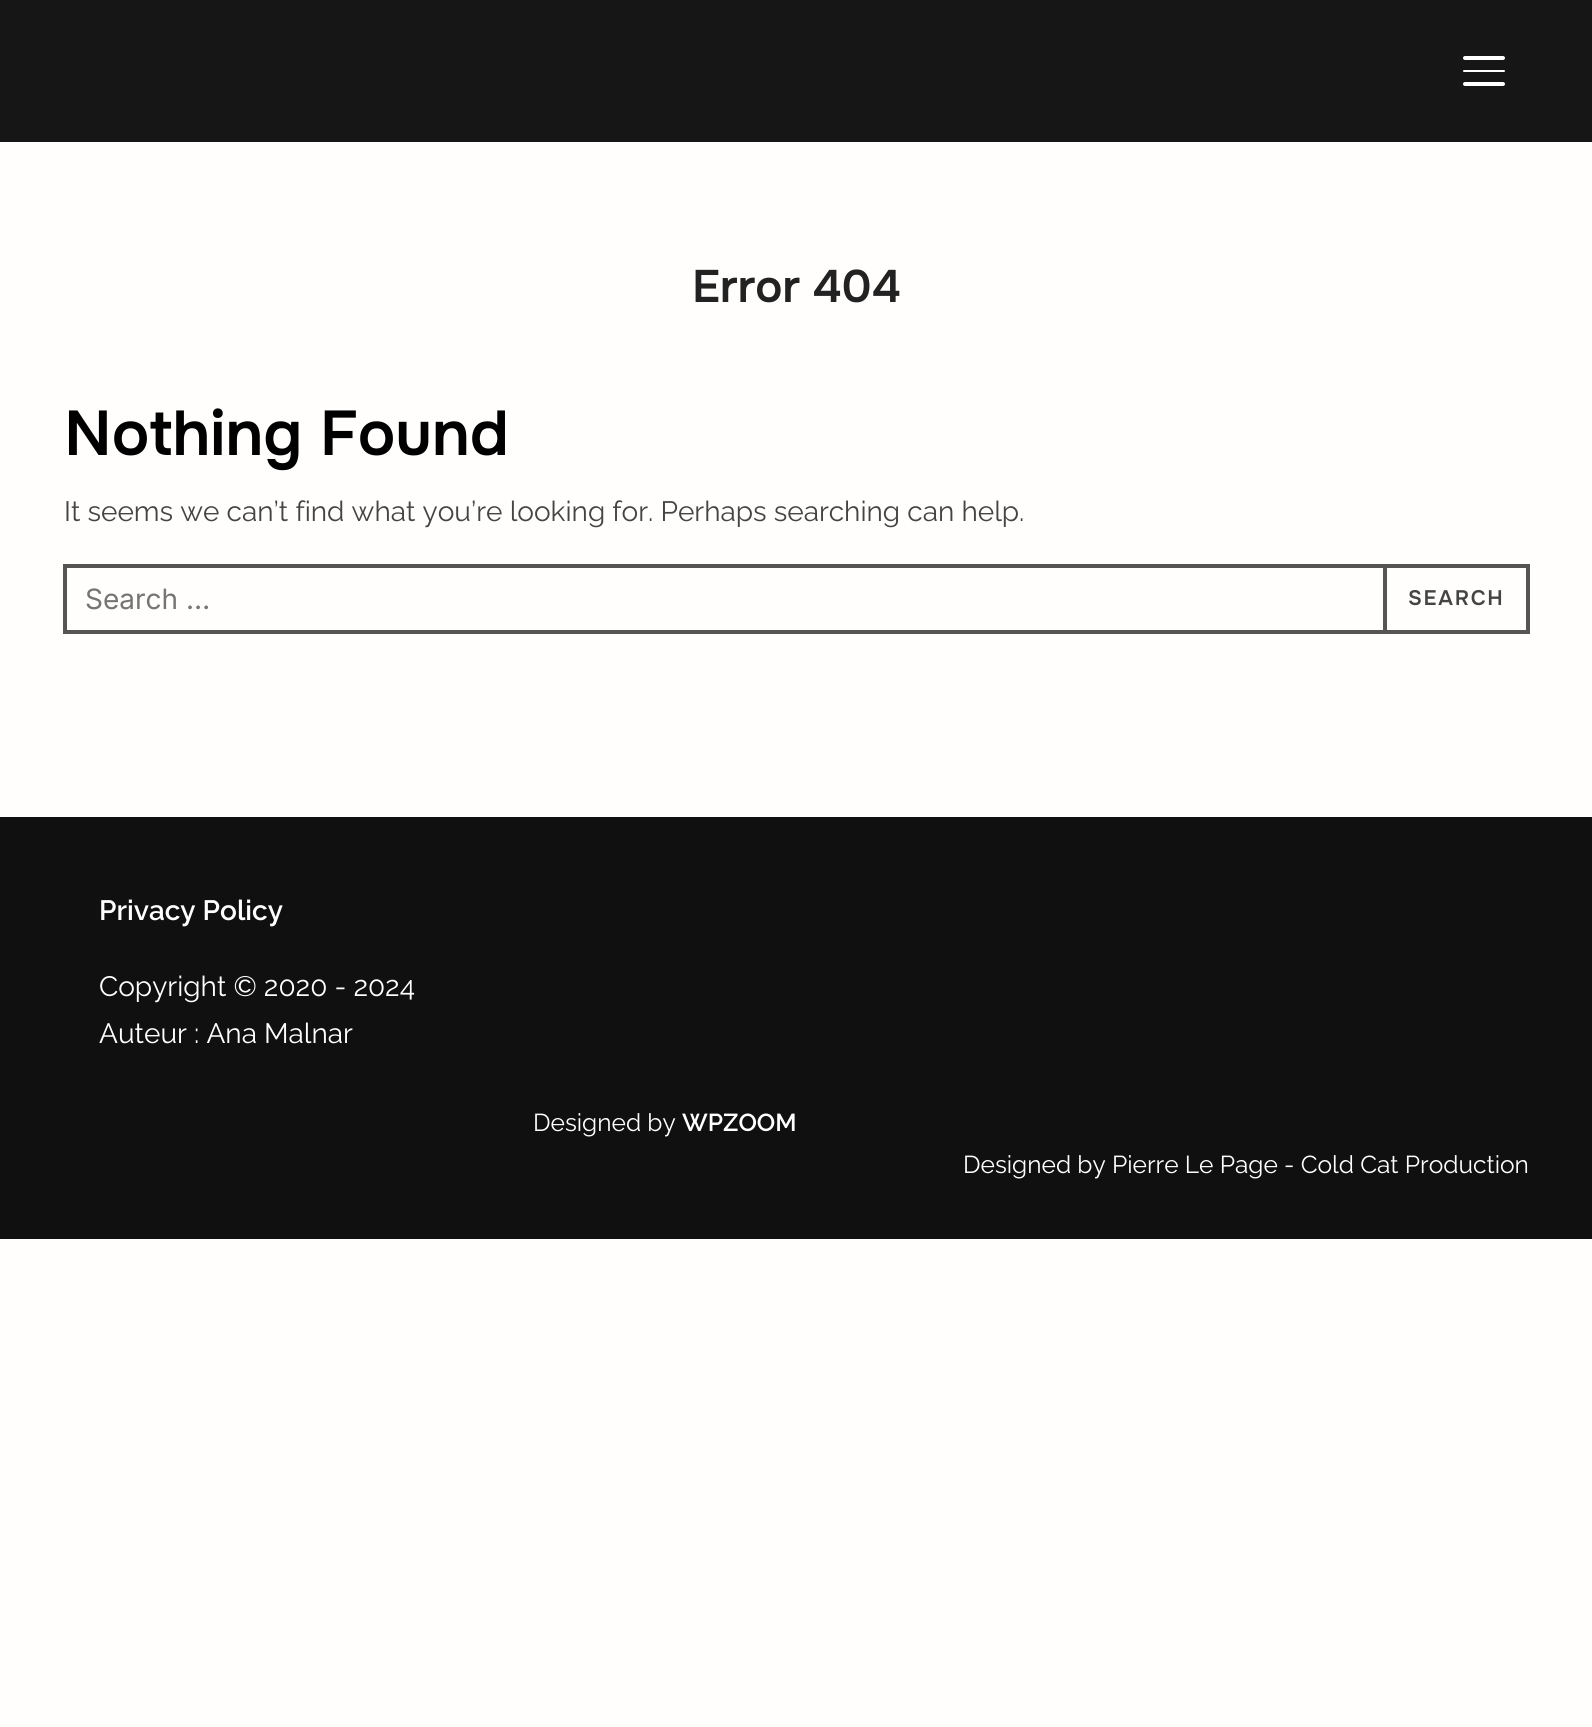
#include <cairo/cairo.h>
#include <math.h>
#include <stddef.h>

static cairo_t *cr;

static void use_color(int r, int g, int b) {
  cairo_set_source_rgb(cr, r / 255.0, g / 255.0, b / 255.0);
}

static void text(double x, double y, const char *s, const char *family, double size, int italic, int bold, int r, int g, int b) {
  cairo_select_font_face(cr, family, italic ? CAIRO_FONT_SLANT_ITALIC : CAIRO_FONT_SLANT_NORMAL,
    bold ? CAIRO_FONT_WEIGHT_BOLD : CAIRO_FONT_WEIGHT_NORMAL);
  cairo_set_font_size(cr, size);
  use_color(r, g, b);
  cairo_move_to(cr, x, y);
  cairo_show_text(cr, s);
}

static void spaced_text(double x, double y, const char *s, double letter, double word) {
  cairo_move_to(cr, x, y);
  while (*s) {
    char ch[5] = {0};
    int n = 0;
    do ch[n++] = *s++; while ((*s & 0xC0) == 0x80);
    cairo_show_text(cr, ch);
    cairo_rel_move_to(cr, letter + word * (*ch == ' '), 0);
  }
}

static void box(double x, double y, double w, double h, int r, int g, int b) {
  use_color(r, g, b);
  cairo_rectangle(cr, x, y, w, h);
  cairo_fill(cr);
}

static void round_rect(double x, double y, double w, double h, double r) {
  cairo_new_sub_path(cr);
  cairo_arc(cr, x + w - r, y + h - r, r, 0, M_PI / 2);
  cairo_arc(cr, x + r, y + h - r, r, M_PI / 2, M_PI);
  cairo_arc(cr, x + r, y + r, r, M_PI, 1.5 * M_PI);
  cairo_arc(cr, x + w - r, y + r, r, 1.5 * M_PI, 2 * M_PI);
  cairo_close_path(cr);
}

static void draw(void) {
  use_color(255, 254, 252);
  cairo_paint(cr);
  box(0, 0, 1592, 142, 22, 22, 22);
  use_color(255, 255, 255);
  round_rect(1463, 56, 42, 4, 2);
  cairo_fill(cr);
  round_rect(1463, 70, 42, 2, 1);
  cairo_fill(cr);
  round_rect(1463, 82, 42, 4, 2);
  cairo_fill(cr);
  cairo_rectangle(cr, 65, 566, 1463, 66);
  use_color(86, 85, 85);
  cairo_set_line_width(cr, 4);
  cairo_stroke(cr);
  cairo_rectangle(cr, 1385, 566, 143, 66);
  cairo_stroke(cr);
  box(0, 817, 1592, 422, 16, 16, 16);
  text(692, 302, "Error 404", "Onest SemiBold", 45.5, 0, 0, 34, 34, 34);
  text(64, 455, "Nothing Found", "Onest SemiBold", 63, 0, 0, 0, 0, 0);
  text(64, 521, "It seems we can’t find what you’re looking for. Perhaps searching can help.", "Raleway", 28, 0, 0, 68, 68, 68);
  text(85, 609, "Search …", "Inter", 28, 0, 0, 117, 117, 117);
  cairo_select_font_face(cr, "Onest SemiBold", CAIRO_FONT_SLANT_NORMAL, CAIRO_FONT_WEIGHT_NORMAL);
  cairo_set_font_size(cr, 21);
  use_color(68, 68, 68);
  spaced_text(1408, 605, "SEARCH", 1.75, 0);
  text(99, 920, "Privacy Policy", "Raleway SemiBold", 28, 0, 0, 255, 255, 255);
  text(99, 996, "Copyright © 2020 - 2024", "Raleway", 28, 0, 0, 255, 255, 255);
  text(99, 1043, "Auteur : Ana Malnar", "Raleway", 28, 0, 0, 255, 255, 255);
  text(533, 1131, "Designed by", "Raleway", 24.5, 0, 0, 255, 255, 255);
  text(682, 1131, "WPZOOM", "Raleway SemiBold", 24.5, 0, 0, 255, 255, 255);
  text(963, 1173, "Designed by Pierre Le Page - Cold Cat Production", "Raleway", 24.5, 0, 0, 255, 255, 255);
}

int main(void) {
  cairo_surface_t *surface = cairo_image_surface_create(CAIRO_FORMAT_RGB24, 1592, 1727);
  cr = cairo_create(surface);
  cairo_font_options_t *options = cairo_font_options_create();
  cairo_font_options_set_hint_metrics(options, CAIRO_HINT_METRICS_OFF);
  cairo_font_options_set_hint_style(options, CAIRO_HINT_STYLE_NONE);
  cairo_set_font_options(cr, options);
  cairo_set_miter_limit(cr, 4);
  draw();
  cairo_surface_write_to_png(surface, "out.png");
  cairo_font_options_destroy(options);
  cairo_destroy(cr);
  cairo_surface_destroy(surface);
  return 0;
}
